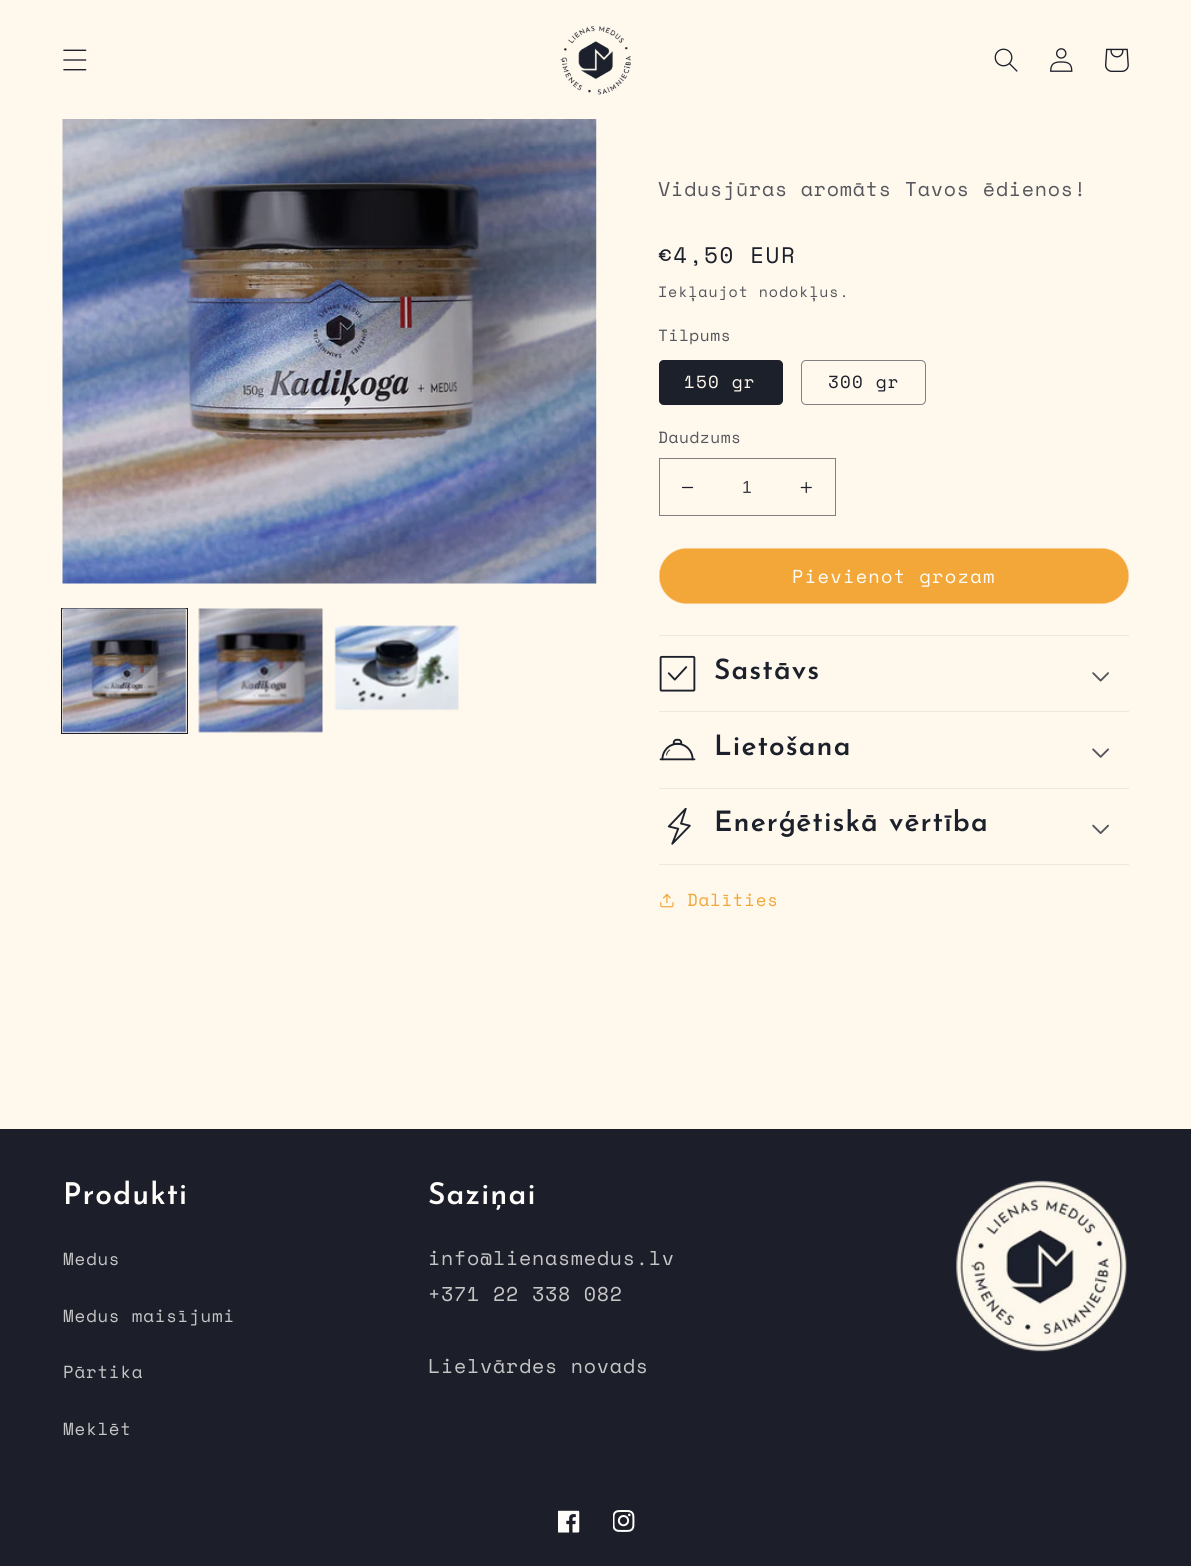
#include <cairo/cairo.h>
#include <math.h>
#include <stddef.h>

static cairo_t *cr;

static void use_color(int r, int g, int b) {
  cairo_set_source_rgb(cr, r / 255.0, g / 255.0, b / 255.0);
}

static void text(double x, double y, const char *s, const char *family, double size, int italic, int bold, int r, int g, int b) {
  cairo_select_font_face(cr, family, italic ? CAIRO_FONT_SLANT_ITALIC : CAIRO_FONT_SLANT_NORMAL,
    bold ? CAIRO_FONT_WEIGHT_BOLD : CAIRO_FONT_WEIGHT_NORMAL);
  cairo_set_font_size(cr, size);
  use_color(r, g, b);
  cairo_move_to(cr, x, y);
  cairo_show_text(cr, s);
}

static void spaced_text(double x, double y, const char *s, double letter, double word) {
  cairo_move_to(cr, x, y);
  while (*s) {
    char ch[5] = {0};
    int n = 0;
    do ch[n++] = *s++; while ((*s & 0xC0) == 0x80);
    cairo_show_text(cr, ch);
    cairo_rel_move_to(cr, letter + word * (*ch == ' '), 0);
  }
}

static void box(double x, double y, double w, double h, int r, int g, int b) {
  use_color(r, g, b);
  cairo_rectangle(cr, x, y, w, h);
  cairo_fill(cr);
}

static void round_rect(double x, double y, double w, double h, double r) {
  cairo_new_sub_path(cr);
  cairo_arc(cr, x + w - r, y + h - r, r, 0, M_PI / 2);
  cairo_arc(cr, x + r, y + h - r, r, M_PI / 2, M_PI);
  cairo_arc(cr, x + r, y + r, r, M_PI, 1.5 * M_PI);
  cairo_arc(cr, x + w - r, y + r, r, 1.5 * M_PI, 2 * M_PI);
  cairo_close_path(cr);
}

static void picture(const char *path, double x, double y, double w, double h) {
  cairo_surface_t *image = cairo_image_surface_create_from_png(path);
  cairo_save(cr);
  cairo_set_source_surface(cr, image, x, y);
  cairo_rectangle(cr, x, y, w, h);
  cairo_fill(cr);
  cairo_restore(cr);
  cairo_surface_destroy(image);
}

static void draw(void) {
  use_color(255, 248, 237);
  cairo_paint(cr);
  picture("img_01.png", 63, 49, 24, 22);
  picture("img_02.png", 560, 26, 71, 69);
  picture("img_03.png", 994, 48, 24, 24);
  picture("img_04.png", 1050, 48, 23, 24);
  picture("img_05.png", 1105, 48, 24, 24);
  picture("img_06.png", 62, 119, 535, 465);
  cairo_rectangle(cr, 61.5, 608.5, 126, 125);
  use_color(28, 32, 43);
  cairo_set_line_width(cr, 1);
  cairo_stroke(cr);
  picture("img_07.png", 62, 608, 125, 125);
  picture("img_08.png", 198, 608, 125, 125);
  picture("img_09.png", 334, 625, 125, 86);
  round_rect(659, 360, 124, 45, 5);
  cairo_fill(cr);
  round_rect(659.5, 360.5, 123, 44, 4.5);
  cairo_set_source_rgba(cr, 0.11, 0.125, 0.169, 0.55);
  cairo_stroke(cr);
  round_rect(801.5, 360.5, 124, 44, 4.5);
  use_color(130, 129, 130);
  cairo_stroke(cr);
  picture("img_10.png", 681, 486, 13, 3);
  picture("img_11.png", 800, 481, 12, 13);
  cairo_rectangle(cr, 659.5, 458.5, 176, 57);
  cairo_stroke(cr);
  use_color(242, 167, 56);
  round_rect(659, 548, 470, 56, 28);
  cairo_fill(cr);
  round_rect(659.2, 548.2, 469.6, 55.6, 27.8);
  use_color(255, 253, 250);
  cairo_set_line_width(cr, 0.4);
  cairo_stroke(cr);
  box(659, 635, 470, 1, 237, 231, 221);
  box(659, 711, 470, 1, 237, 231, 221);
  picture("img_12.png", 659, 655, 37, 37);
  picture("img_13.png", 1092, 672, 17, 10);
  box(659, 788, 470, 1, 237, 231, 221);
  picture("img_14.png", 659, 738, 37, 23);
  picture("img_15.png", 1092, 748, 17, 10);
  box(659, 864, 470, 1, 237, 231, 221);
  picture("img_16.png", 667, 808, 24, 37);
  picture("img_17.png", 1092, 824, 17, 10);
  picture("img_18.png", 660, 893, 14, 15);
  box(0, 1129, 1191, 437, 28, 31, 42);
  picture("img_19.png", 956, 1180, 171, 172);
  picture("img_20.png", 558, 1510, 22, 23);
  picture("img_21.png", 613, 1510, 22, 22);
  cairo_select_font_face(cr, "Space Mono", CAIRO_FONT_SLANT_NORMAL, CAIRO_FONT_WEIGHT_NORMAL);
  cairo_set_font_size(cr, 20);
  use_color(85, 86, 92);
  spaced_text(658, 196, "Vidusjūras aromāts Tavos ēdienos!", 0.75, 0);
  cairo_set_font_size(cr, 22.5);
  use_color(28, 32, 43);
  spaced_text(658, 263, "€4,50 EUR", 1.6, 0);
  cairo_set_font_size(cr, 15);
  use_color(85, 86, 92);
  spaced_text(658, 297, "Iekļaujot nodokļus.", 0.9, 0);
  cairo_set_font_size(cr, 16.25);
  spaced_text(658, 341, "Tilpums", 0.5, 0);
  cairo_set_font_size(cr, 17.5);
  use_color(255, 248, 237);
  spaced_text(684, 388, "150 gr", 1.25, 0);
  use_color(28, 32, 43);
  spaced_text(828, 388, "300 gr", 1.25, 0);
  cairo_set_font_size(cr, 16.25);
  use_color(85, 86, 92);
  spaced_text(658, 443, "Daudzums", 0.5, 0);
  text(742, 493, "1", "Liberation Sans", 17.5, 0, 0, 62, 64, 72);
  cairo_select_font_face(cr, "Space Mono", CAIRO_FONT_SLANT_NORMAL, CAIRO_FONT_WEIGHT_NORMAL);
  cairo_set_font_size(cr, 18.75);
  use_color(255, 253, 250);
  spaced_text(792, 583, "Pievienot grozam", 1.25, 0);
  cairo_select_font_face(cr, "Josefin Sans SemiBold", CAIRO_FONT_SLANT_NORMAL, CAIRO_FONT_WEIGHT_NORMAL);
  cairo_set_font_size(cr, 28.1);
  use_color(28, 32, 43);
  spaced_text(714, 679, "Sastāvs", 1.1, 0);
  spaced_text(714, 755, "Lietošana", 1.1, 0);
  spaced_text(714, 831, "Enerģētiskā vērtība", 1.1, 0);
  cairo_select_font_face(cr, "Space Mono", CAIRO_FONT_SLANT_NORMAL, CAIRO_FONT_WEIGHT_NORMAL);
  cairo_set_font_size(cr, 17.5);
  use_color(242, 167, 56);
  spaced_text(687, 906, "Dalīties", 0.75, 0);
  cairo_select_font_face(cr, "Josefin Sans SemiBold", CAIRO_FONT_SLANT_NORMAL, CAIRO_FONT_WEIGHT_NORMAL);
  cairo_set_font_size(cr, 30);
  use_color(255, 253, 250);
  spaced_text(63, 1204, "Produkti", 1.1, 0);
  cairo_select_font_face(cr, "Space Mono", CAIRO_FONT_SLANT_NORMAL, CAIRO_FONT_WEIGHT_NORMAL);
  cairo_set_font_size(cr, 17.5);
  use_color(198, 198, 198);
  spaced_text(63, 1265, "Medus", 0.75, 0);
  spaced_text(63, 1322, "Medus maisījumi", 0.75, 0);
  spaced_text(63, 1378, "Pārtika", 0.75, 0);
  spaced_text(63, 1435, "Meklēt", 0.75, 0);
  cairo_select_font_face(cr, "Josefin Sans SemiBold", CAIRO_FONT_SLANT_NORMAL, CAIRO_FONT_WEIGHT_NORMAL);
  cairo_set_font_size(cr, 30);
  use_color(255, 253, 250);
  spaced_text(428, 1204, "Saziņai", 1.1, 0);
  cairo_select_font_face(cr, "Space Mono", CAIRO_FONT_SLANT_NORMAL, CAIRO_FONT_WEIGHT_NORMAL);
  cairo_set_font_size(cr, 20);
  use_color(198, 198, 198);
  spaced_text(428, 1265, "info@lienasmedus.lv", 0.75, 0);
  spaced_text(428, 1301, "+371 22 338 082", 0.75, 0);
  spaced_text(428, 1373, "Lielvārdes novads", 0.75, 0);
}

int main(void) {
  cairo_surface_t *surface = cairo_image_surface_create(CAIRO_FORMAT_RGB24, 1191, 1566);
  cr = cairo_create(surface);
  cairo_font_options_t *options = cairo_font_options_create();
  cairo_font_options_set_hint_metrics(options, CAIRO_HINT_METRICS_OFF);
  cairo_font_options_set_hint_style(options, CAIRO_HINT_STYLE_NONE);
  cairo_set_font_options(cr, options);
  cairo_set_miter_limit(cr, 4);
  draw();
  cairo_surface_write_to_png(surface, "out.png");
  cairo_font_options_destroy(options);
  cairo_destroy(cr);
  cairo_surface_destroy(surface);
  return 0;
}
